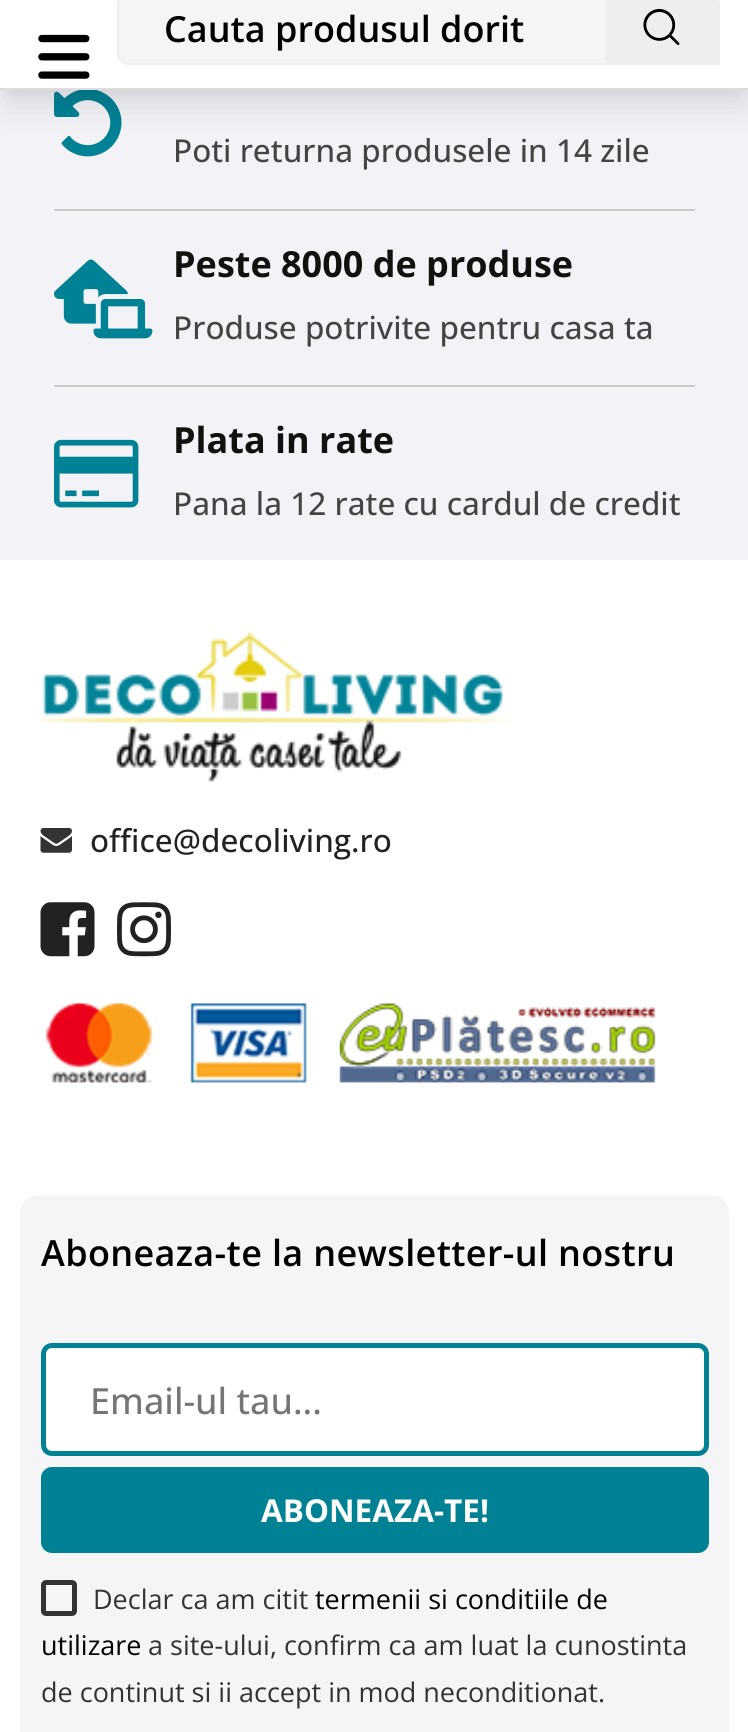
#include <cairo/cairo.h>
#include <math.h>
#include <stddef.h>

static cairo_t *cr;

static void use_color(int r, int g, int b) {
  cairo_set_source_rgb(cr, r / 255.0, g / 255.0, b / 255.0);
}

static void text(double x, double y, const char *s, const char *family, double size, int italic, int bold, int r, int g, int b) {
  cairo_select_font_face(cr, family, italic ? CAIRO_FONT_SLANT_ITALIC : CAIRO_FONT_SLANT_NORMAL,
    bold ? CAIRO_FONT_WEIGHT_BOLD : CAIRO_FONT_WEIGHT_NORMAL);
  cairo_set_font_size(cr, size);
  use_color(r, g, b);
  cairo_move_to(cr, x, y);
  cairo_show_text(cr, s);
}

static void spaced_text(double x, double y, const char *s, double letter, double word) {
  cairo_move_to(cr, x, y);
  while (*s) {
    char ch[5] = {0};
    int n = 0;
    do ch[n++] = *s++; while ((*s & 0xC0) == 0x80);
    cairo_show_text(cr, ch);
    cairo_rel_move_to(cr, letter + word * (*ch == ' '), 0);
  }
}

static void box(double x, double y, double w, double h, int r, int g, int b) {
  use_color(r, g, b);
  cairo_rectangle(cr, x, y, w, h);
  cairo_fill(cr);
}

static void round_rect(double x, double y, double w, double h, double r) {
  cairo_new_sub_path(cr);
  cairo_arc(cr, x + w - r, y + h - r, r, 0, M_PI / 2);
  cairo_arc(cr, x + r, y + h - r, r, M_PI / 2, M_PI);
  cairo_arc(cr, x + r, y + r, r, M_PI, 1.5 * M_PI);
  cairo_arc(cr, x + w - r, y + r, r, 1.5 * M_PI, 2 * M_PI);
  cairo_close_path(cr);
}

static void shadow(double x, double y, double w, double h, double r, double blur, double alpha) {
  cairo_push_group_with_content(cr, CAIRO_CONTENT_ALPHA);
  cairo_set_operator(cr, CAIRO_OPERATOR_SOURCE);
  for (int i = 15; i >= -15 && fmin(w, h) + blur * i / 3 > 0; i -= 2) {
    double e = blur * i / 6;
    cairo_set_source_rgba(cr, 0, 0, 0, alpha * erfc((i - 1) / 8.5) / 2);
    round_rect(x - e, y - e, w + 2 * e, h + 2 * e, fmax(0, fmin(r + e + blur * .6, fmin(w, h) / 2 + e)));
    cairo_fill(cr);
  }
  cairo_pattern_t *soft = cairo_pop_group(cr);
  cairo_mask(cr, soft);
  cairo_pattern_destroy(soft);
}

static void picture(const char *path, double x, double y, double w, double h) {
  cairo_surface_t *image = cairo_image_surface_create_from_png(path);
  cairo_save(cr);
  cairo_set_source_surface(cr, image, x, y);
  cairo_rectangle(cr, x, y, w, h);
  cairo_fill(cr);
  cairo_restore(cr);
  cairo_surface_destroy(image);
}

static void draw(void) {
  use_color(255, 255, 255);
  cairo_paint(cr);
  box(0, 90, 748, 470, 242, 242, 247);
  picture("img_03.png", 54, 90, 68, 67);
  use_color(0, 0, 0);
  shadow(5, -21, 740, 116, 0, 7, 0.05);
  shadow(7, -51, 736, 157, 0, 17, 0.1);
  box(0, 0, 748, 88, 255, 255, 255);
  box(0, 88, 748, 2, 221, 221, 221);
  picture("img_01.png", 38, 34, 52, 45);
  use_color(245, 245, 247);
  cairo_new_path(cr);
  cairo_move_to(cr, 128, -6);
  cairo_line_to(cr, 709, -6);
  cairo_curve_to(cr, 714.5, -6, 719, -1.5, 719, 4);
  cairo_line_to(cr, 719, 64);
  cairo_line_to(cr, 128, 64);
  cairo_curve_to(cr, 122.5, 64, 118, 59.5, 118, 54);
  cairo_line_to(cr, 118, 4);
  cairo_curve_to(cr, 118, -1.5, 122.5, -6, 128, -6);
  cairo_close_path(cr);
  cairo_fill_preserve(cr);
  use_color(238, 238, 238);
  cairo_stroke(cr);
  cairo_new_path(cr);
  cairo_move_to(cr, 605, -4);
  cairo_line_to(cr, 707, -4);
  cairo_curve_to(cr, 713, -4, 718, 1, 718, 7);
  cairo_line_to(cr, 718, 63);
  cairo_line_to(cr, 605, 63);
  cairo_close_path(cr);
  cairo_fill(cr);
  picture("img_02.png", 643, 8, 37, 37);
  box(54, 209, 641, 2, 204, 204, 204);
  box(54, 385, 641, 2, 204, 204, 204);
  picture("img_04.png", 54, 259, 99, 80);
  picture("img_05.png", 54, 439, 85, 69);
  picture("img_06.png", 40, 631, 471, 151);
  picture("img_07.png", 40, 828, 32, 25);
  picture("img_08.png", 40, 902, 55, 55);
  picture("img_09.png", 117, 902, 54, 55);
  picture("img_10.png", 45, 1003, 108, 80);
  picture("img_11.png", 190, 1003, 117, 80);
  picture("img_12.png", 339, 1003, 317, 80);
  use_color(245, 245, 247);
  round_rect(20, 1195, 709, 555, 18);
  cairo_fill(cr);
  use_color(255, 255, 255);
  round_rect(43.5, 1345.5, 663, 108, 8.5);
  cairo_fill_preserve(cr);
  use_color(0, 129, 148);
  cairo_set_line_width(cr, 5);
  cairo_stroke(cr);
  round_rect(41, 1467, 668, 86, 11);
  cairo_fill(cr);
  round_rect(43.5, 1582.5, 31, 31, 2.5);
  use_color(51, 51, 51);
  cairo_stroke(cr);
  text(164, 42, "Cauta produsul dorit", "Open Sans SemiBold", 36, 0, 0, 0, 0, 0);
  text(173, 162, "Poti returna produsele in 14 zile", "Open Sans Medium", 31.5, 0, 0, 68, 68, 68);
  text(173, 277, "Peste 8000 de produse", "Open Sans", 36, 0, 1, 17, 17, 17);
  text(173, 339, "Produse potrivite pentru casa ta", "Open Sans Medium", 31.5, 0, 0, 68, 68, 68);
  text(173, 453, "Plata in rate", "Open Sans", 36, 0, 1, 17, 17, 17);
  text(173, 515, "Pana la 12 rate cu cardul de credit", "Open Sans Medium", 31.5, 0, 0, 68, 68, 68);
  text(90, 852, "office@decoliving.ro", "Open Sans Medium", 31.5, 0, 0, 34, 34, 34);
  cairo_select_font_face(cr, "Open Sans SemiBold", CAIRO_FONT_SLANT_NORMAL, CAIRO_FONT_WEIGHT_NORMAL);
  cairo_set_font_size(cr, 36);
  use_color(0, 0, 0);
  spaced_text(41, 1266, "Aboneaza-te la newsletter-ul nostru", 0.35, 0);
  text(90, 1414, "Email-ul tau...", "Open Sans Medium", 36, 0, 0, 117, 117, 117);
  text(261, 1522, "ABONEAZA-TE!", "Open Sans", 31.5, 0, 1, 255, 255, 255);
  text(93, 1609, "Declar ca am citit", "Open Sans", 27, 0, 0, 51, 51, 51);
  text(315, 1609, "termenii si conditiile de", "Open Sans", 27, 0, 0, 0, 0, 0);
  text(41, 1655, "utilizare", "Open Sans", 27, 0, 0, 0, 0, 0);
  text(148, 1655, "a site-ului, confirm ca am luat la cunostinta", "Open Sans", 27, 0, 0, 51, 51, 51);
  text(41, 1702, "de continut si ii accept in mod neconditionat.", "Open Sans", 27, 0, 0, 51, 51, 51);
}

int main(void) {
  cairo_surface_t *surface = cairo_image_surface_create(CAIRO_FORMAT_RGB24, 748, 1732);
  cr = cairo_create(surface);
  cairo_font_options_t *options = cairo_font_options_create();
  cairo_font_options_set_hint_metrics(options, CAIRO_HINT_METRICS_OFF);
  cairo_font_options_set_hint_style(options, CAIRO_HINT_STYLE_NONE);
  cairo_set_font_options(cr, options);
  cairo_set_miter_limit(cr, 4);
  draw();
  cairo_surface_write_to_png(surface, "out.png");
  cairo_font_options_destroy(options);
  cairo_destroy(cr);
  cairo_surface_destroy(surface);
  return 0;
}
